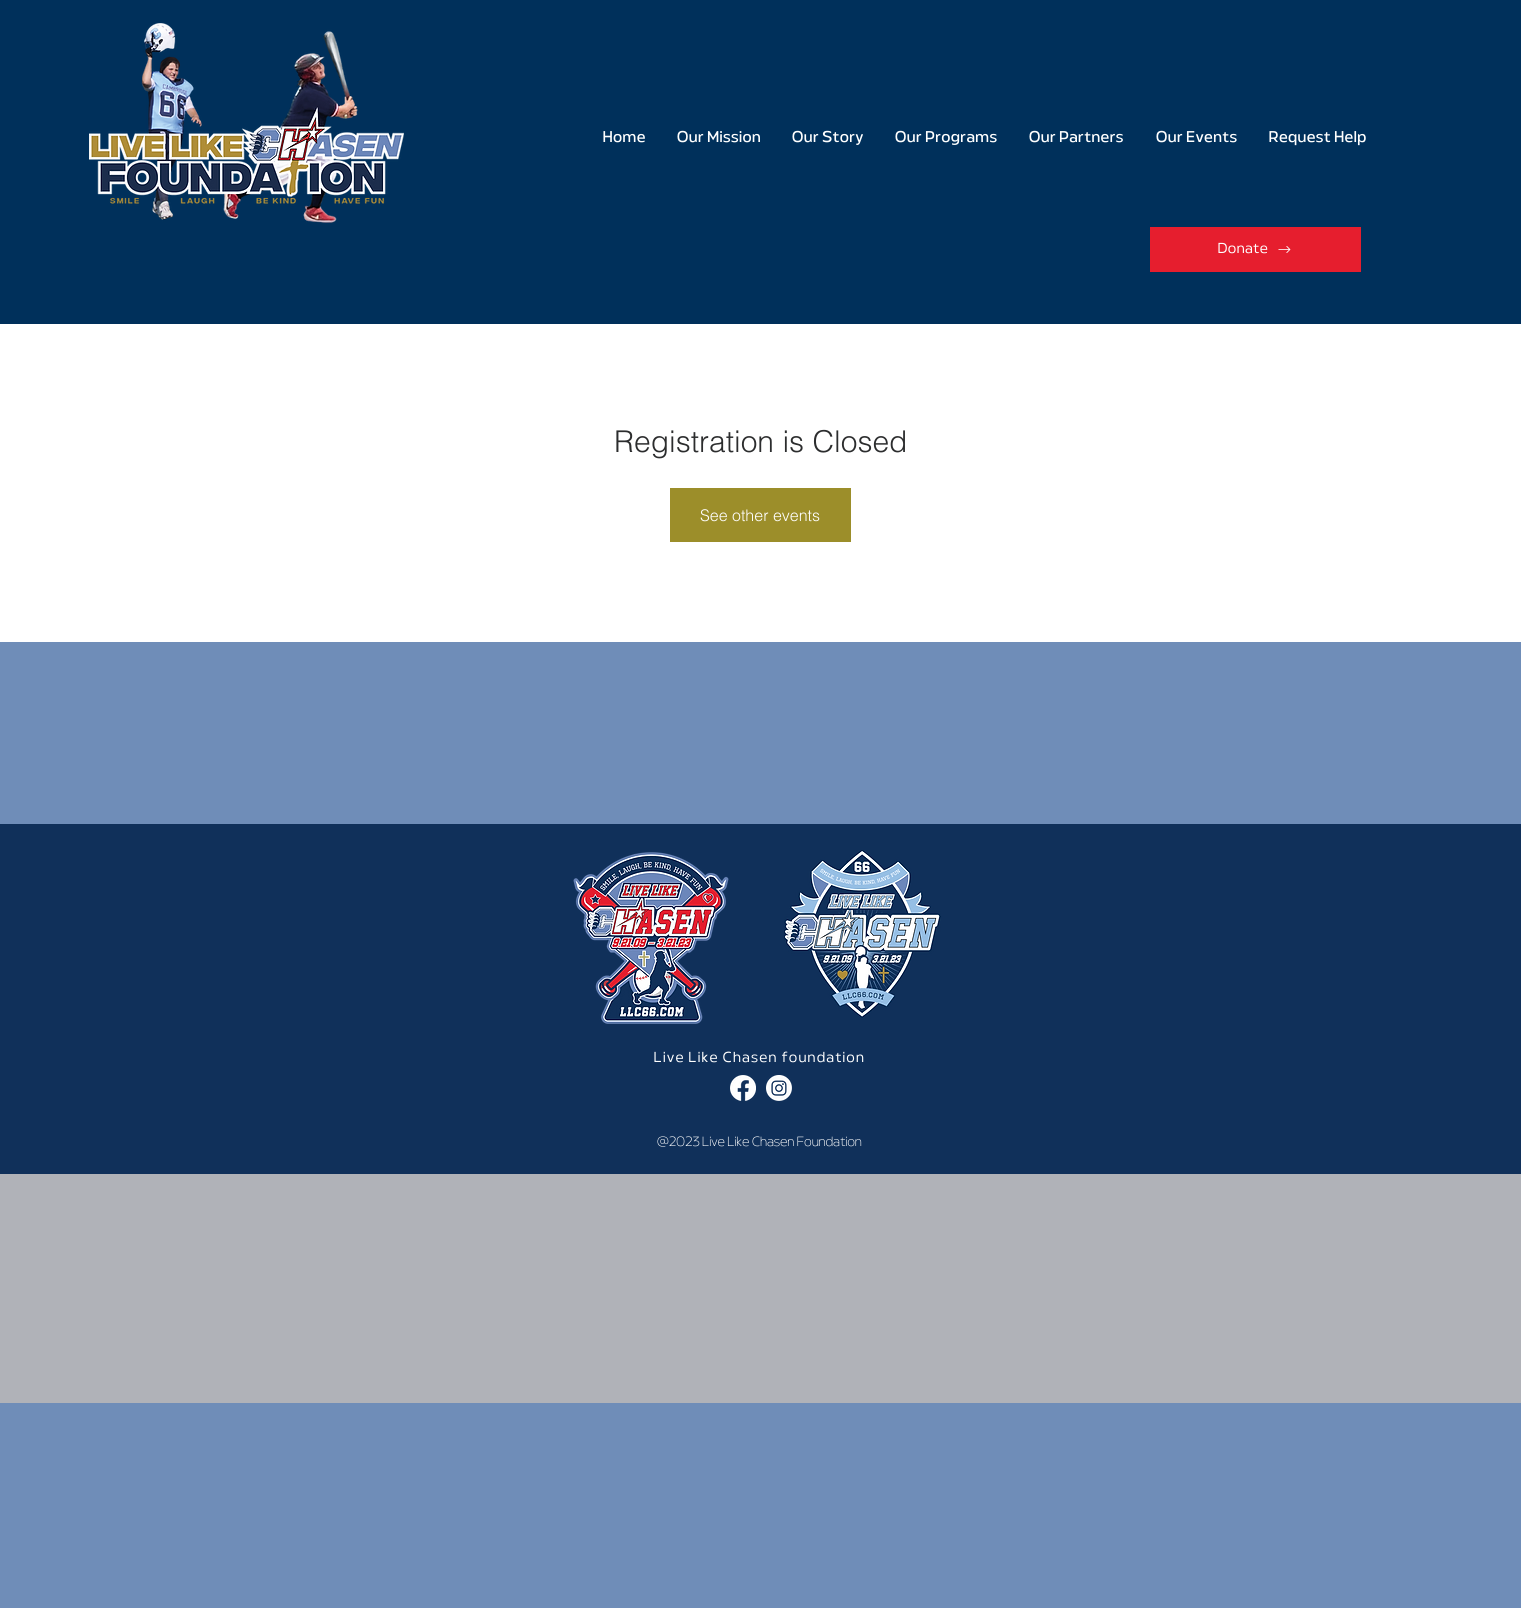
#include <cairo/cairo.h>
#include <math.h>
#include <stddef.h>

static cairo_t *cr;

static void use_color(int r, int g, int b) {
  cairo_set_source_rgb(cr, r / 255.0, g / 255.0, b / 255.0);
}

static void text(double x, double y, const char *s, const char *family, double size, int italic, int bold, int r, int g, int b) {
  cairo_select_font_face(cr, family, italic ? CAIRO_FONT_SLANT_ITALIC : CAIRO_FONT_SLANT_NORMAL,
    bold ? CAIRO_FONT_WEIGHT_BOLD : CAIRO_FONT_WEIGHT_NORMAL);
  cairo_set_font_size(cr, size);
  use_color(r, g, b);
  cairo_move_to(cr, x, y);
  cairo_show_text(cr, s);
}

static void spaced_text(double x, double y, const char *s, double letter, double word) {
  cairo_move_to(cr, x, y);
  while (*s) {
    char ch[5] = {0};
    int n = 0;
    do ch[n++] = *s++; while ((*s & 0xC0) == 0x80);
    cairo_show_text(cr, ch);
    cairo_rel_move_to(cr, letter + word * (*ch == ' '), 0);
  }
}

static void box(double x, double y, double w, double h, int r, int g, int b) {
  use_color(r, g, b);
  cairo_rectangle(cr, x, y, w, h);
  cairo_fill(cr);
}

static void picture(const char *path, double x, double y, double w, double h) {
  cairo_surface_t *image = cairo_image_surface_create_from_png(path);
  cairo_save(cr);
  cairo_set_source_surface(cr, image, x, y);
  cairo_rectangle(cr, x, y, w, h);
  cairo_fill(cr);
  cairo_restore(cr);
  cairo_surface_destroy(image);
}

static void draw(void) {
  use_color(111, 141, 184);
  cairo_paint(cr);
  box(0, 0, 1521, 324, 0, 48, 91);
  picture("img_01.png", 89, 23, 315, 200);
  box(1150, 227, 211, 45, 230, 30, 46);
  picture("img_02.png", 1278, 246, 13, 7);
  box(0, 324, 1521, 318, 255, 255, 255);
  box(670, 488, 181, 54, 156, 142, 42);
  box(0, 824, 1521, 350, 16, 48, 90);
  picture("img_03.png", 573, 852, 156, 172);
  picture("img_04.png", 784, 850, 157, 168);
  picture("img_05.png", 730, 1075, 26, 26);
  picture("img_06.png", 766, 1075, 26, 26);
  box(0, 1174, 1521, 229, 176, 178, 184);
  cairo_select_font_face(cr, "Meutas", CAIRO_FONT_SLANT_NORMAL, CAIRO_FONT_WEIGHT_NORMAL);
  cairo_set_font_size(cr, 14);
  use_color(255, 255, 255);
  spaced_text(603, 142, "Home", 0.5, 0);
  spaced_text(677, 142, "Our Mission", 0.5, 0);
  spaced_text(792, 142, "Our Story", 0.5, 0);
  spaced_text(895, 142, "Our Programs", 0.5, 0);
  spaced_text(1029, 142, "Our Partners", 0.5, 0);
  spaced_text(1156, 142, "Our Events", 0.5, 0);
  spaced_text(1269, 142, "Request Help", 0.5, 0);
  cairo_select_font_face(cr, "Meutas Light", CAIRO_FONT_SLANT_NORMAL, CAIRO_FONT_WEIGHT_NORMAL);
  cairo_set_font_size(cr, 13);
  spaced_text(1218, 253, "Donate", 0.5, 0);
  text(614, 452, "Registration is Closed", "helvetica Light", 30, 0, 0, 44, 45, 46);
  text(700, 521, "See other events", "helvetica Light", 16, 0, 0, 255, 255, 255);
  cairo_select_font_face(cr, "Meutas Light", CAIRO_FONT_SLANT_NORMAL, CAIRO_FONT_WEIGHT_NORMAL);
  cairo_set_font_size(cr, 13);
  spaced_text(654, 1062, "Live Like Chasen foundation", 1.3, 0);
  text(657, 1146, "@2023 Live Like Chasen Foundation", "Meutas ExtraLight", 12, 0, 0, 255, 255, 255);
}

int main(void) {
  cairo_surface_t *surface = cairo_image_surface_create(CAIRO_FORMAT_RGB24, 1521, 1608);
  cr = cairo_create(surface);
  cairo_font_options_t *options = cairo_font_options_create();
  cairo_font_options_set_hint_metrics(options, CAIRO_HINT_METRICS_OFF);
  cairo_font_options_set_hint_style(options, CAIRO_HINT_STYLE_NONE);
  cairo_set_font_options(cr, options);
  cairo_set_miter_limit(cr, 4);
  draw();
  cairo_surface_write_to_png(surface, "out.png");
  cairo_font_options_destroy(options);
  cairo_destroy(cr);
  cairo_surface_destroy(surface);
  return 0;
}
